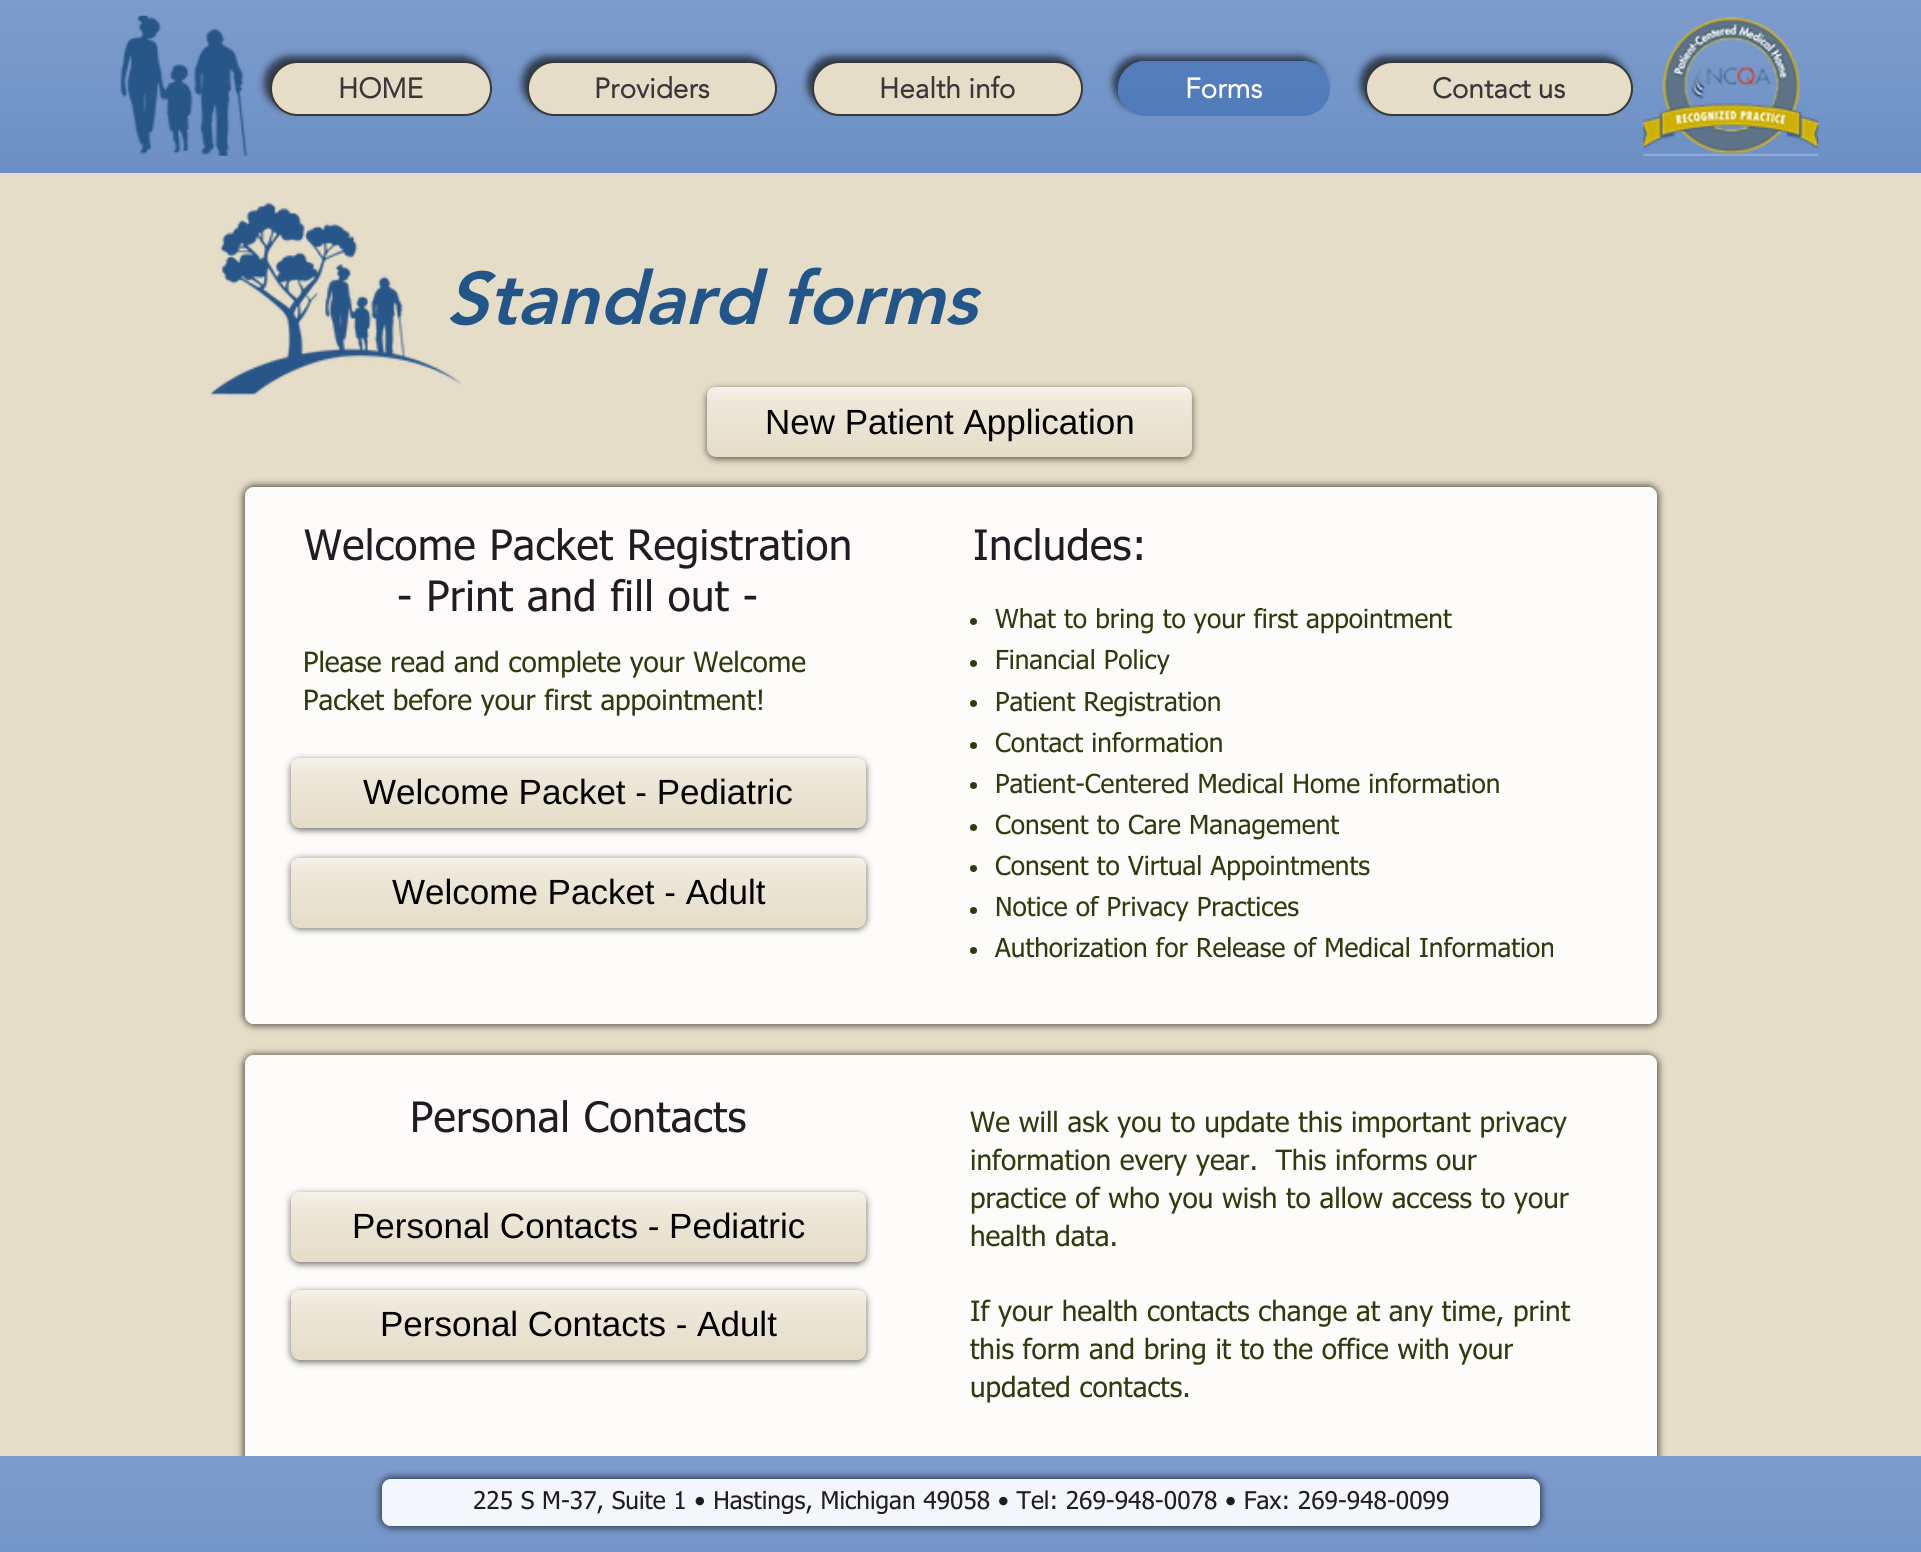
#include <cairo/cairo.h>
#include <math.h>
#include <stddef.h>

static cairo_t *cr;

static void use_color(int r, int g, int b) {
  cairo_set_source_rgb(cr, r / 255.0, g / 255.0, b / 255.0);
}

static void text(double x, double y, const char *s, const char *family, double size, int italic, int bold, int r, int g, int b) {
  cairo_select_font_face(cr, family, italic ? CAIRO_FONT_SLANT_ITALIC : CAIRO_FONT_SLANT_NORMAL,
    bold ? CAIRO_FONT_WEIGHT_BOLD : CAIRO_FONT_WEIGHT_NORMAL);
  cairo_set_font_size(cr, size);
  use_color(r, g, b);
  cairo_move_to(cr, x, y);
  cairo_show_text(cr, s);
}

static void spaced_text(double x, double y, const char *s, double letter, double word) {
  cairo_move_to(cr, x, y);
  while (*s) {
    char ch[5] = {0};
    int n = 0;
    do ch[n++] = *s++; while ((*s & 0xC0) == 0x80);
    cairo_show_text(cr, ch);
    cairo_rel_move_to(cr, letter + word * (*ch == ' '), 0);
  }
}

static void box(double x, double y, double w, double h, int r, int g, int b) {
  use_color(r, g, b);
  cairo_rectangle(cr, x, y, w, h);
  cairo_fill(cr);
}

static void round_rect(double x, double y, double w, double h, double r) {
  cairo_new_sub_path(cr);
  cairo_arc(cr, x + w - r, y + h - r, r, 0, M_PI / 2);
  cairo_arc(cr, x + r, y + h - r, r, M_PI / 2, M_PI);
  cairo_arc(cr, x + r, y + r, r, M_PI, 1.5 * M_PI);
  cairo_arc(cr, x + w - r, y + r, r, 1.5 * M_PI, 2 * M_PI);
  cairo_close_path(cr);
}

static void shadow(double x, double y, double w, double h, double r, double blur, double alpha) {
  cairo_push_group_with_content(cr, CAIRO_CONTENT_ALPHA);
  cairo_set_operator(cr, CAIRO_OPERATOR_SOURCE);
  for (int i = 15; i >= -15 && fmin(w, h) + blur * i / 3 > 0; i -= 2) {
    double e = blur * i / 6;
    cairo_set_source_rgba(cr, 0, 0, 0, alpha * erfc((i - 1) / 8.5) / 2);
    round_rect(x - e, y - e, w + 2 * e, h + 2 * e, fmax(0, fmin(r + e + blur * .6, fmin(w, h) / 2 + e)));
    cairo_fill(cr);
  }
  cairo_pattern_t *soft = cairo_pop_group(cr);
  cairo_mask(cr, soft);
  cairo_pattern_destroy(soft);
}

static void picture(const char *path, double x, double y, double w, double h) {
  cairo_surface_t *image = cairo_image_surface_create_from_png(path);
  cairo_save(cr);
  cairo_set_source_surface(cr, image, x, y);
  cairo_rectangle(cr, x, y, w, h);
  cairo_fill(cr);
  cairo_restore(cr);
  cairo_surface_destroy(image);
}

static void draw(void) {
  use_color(229, 221, 200);
  cairo_paint(cr);
  box(0, 0, 1921, 173, 80, 122, 186);
  picture("img_01.png", 0, 0, 1921, 173);
  picture("img_02.png", 120, 15, 128, 141);
  use_color(0, 0, 0);
  shadow(264, 56, 223, 54, 27, 3.5, 0.6);
  use_color(229, 221, 200);
  round_rect(271, 62, 220, 53, 26.5);
  cairo_fill_preserve(cr);
  use_color(56, 56, 56);
  cairo_stroke(cr);
  use_color(0, 0, 0);
  shadow(522, 56, 250, 54, 27, 3.5, 0.6);
  use_color(229, 221, 200);
  round_rect(528, 62, 248, 53, 26.5);
  cairo_fill_preserve(cr);
  use_color(56, 56, 56);
  cairo_stroke(cr);
  use_color(0, 0, 0);
  shadow(807, 56, 271, 54, 27, 3.5, 0.6);
  use_color(229, 221, 200);
  round_rect(813, 62, 269, 53, 26.5);
  cairo_fill_preserve(cr);
  use_color(56, 56, 56);
  cairo_stroke(cr);
  cairo_save(cr);
  cairo_set_fill_rule(cr, CAIRO_FILL_RULE_EVEN_ODD);
  cairo_new_path(cr);
  cairo_move_to(cr, 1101, 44);
  cairo_line_to(cr, 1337, 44);
  cairo_line_to(cr, 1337, 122);
  cairo_line_to(cr, 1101, 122);
  cairo_close_path(cr);
  cairo_move_to(cr, 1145.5, 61);
  cairo_line_to(cr, 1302.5, 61);
  cairo_curve_to(cr, 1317.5, 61, 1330, 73.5, 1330, 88.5);
  cairo_curve_to(cr, 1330, 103.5, 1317.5, 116, 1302.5, 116);
  cairo_line_to(cr, 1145.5, 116);
  cairo_curve_to(cr, 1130.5, 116, 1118, 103.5, 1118, 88.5);
  cairo_curve_to(cr, 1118, 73.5, 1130.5, 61, 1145.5, 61);
  cairo_close_path(cr);
  cairo_clip(cr);
  use_color(0, 0, 0);
  shadow(1113, 56, 212, 54, 27, 3.5, 0.6);
  cairo_restore(cr);
  cairo_set_source_rgba(cr, 0.314, 0.478, 0.729, 0.91);
  round_rect(1119, 62, 210, 53, 26.5);
  cairo_fill_preserve(cr);
  use_color(80, 122, 186);
  cairo_stroke(cr);
  use_color(0, 0, 0);
  shadow(1360, 56, 268, 54, 27, 3.5, 0.6);
  use_color(229, 221, 200);
  round_rect(1366, 62, 266, 53, 26.5);
  cairo_fill_preserve(cr);
  use_color(56, 56, 56);
  cairo_stroke(cr);
  picture("img_03.png", 1643, 17, 176, 139);
  use_color(0, 0, 0);
  shadow(707, 389, 485, 70, 9, 3.5, 0.6);
  use_color(229, 221, 200);
  round_rect(707, 387, 485, 70, 9);
  cairo_fill(cr);
  picture("img_05.png", 707, 387, 485, 60);
  cairo_save(cr);
  cairo_set_fill_rule(cr, CAIRO_FILL_RULE_EVEN_ODD);
  cairo_new_path(cr);
  cairo_move_to(cr, 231, 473);
  cairo_line_to(cr, 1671, 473);
  cairo_line_to(cr, 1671, 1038);
  cairo_line_to(cr, 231, 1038);
  cairo_close_path(cr);
  cairo_move_to(cr, 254, 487);
  cairo_line_to(cr, 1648, 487);
  cairo_curve_to(cr, 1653, 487, 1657, 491, 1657, 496);
  cairo_line_to(cr, 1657, 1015);
  cairo_curve_to(cr, 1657, 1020, 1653, 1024, 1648, 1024);
  cairo_line_to(cr, 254, 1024);
  cairo_curve_to(cr, 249, 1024, 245, 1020, 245, 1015);
  cairo_line_to(cr, 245, 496);
  cairo_curve_to(cr, 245, 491, 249, 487, 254, 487);
  cairo_close_path(cr);
  cairo_clip(cr);
  use_color(0, 0, 0);
  shadow(243, 485, 1416, 541, 11, 3.5, 0.6);
  cairo_restore(cr);
  cairo_set_source_rgba(cr, 1, 1, 1, 0.91);
  round_rect(245, 487, 1412, 537, 9);
  cairo_fill(cr);
  use_color(47, 58, 15);
  cairo_arc(cr, 973.5, 621.5, 3.5, 0, 2 * M_PI);
  cairo_fill(cr);
  cairo_arc(cr, 973.5, 663.5, 3.5, 0, 2 * M_PI);
  cairo_fill(cr);
  cairo_arc(cr, 973.5, 703.5, 3.5, 0, 2 * M_PI);
  cairo_fill(cr);
  cairo_arc(cr, 973.5, 745.5, 3.5, 0, 2 * M_PI);
  cairo_fill(cr);
  cairo_arc(cr, 973.5, 785.5, 3.5, 0, 2 * M_PI);
  cairo_fill(cr);
  cairo_arc(cr, 973.5, 827.5, 3.5, 0, 2 * M_PI);
  cairo_fill(cr);
  cairo_arc(cr, 973.5, 868.5, 3.5, 0, 2 * M_PI);
  cairo_fill(cr);
  cairo_arc(cr, 973.5, 910.5, 3.5, 0, 2 * M_PI);
  cairo_fill(cr);
  cairo_arc(cr, 973.5, 950.5, 3.5, 0, 2 * M_PI);
  cairo_fill(cr);
  use_color(0, 0, 0);
  shadow(291, 760, 575, 70, 9, 3.5, 0.6);
  use_color(229, 221, 200);
  round_rect(291, 758, 575, 70, 9);
  cairo_fill(cr);
  picture("img_06.png", 291, 758, 575, 60);
  use_color(0, 0, 0);
  shadow(291, 859, 575, 70, 9, 3.5, 0.6);
  use_color(229, 221, 200);
  round_rect(291, 858, 575, 70, 9);
  cairo_fill(cr);
  picture("img_07.png", 291, 857, 575, 61);
  cairo_save(cr);
  cairo_set_fill_rule(cr, CAIRO_FILL_RULE_EVEN_ODD);
  cairo_new_path(cr);
  cairo_move_to(cr, 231, 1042);
  cairo_line_to(cr, 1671, 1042);
  cairo_line_to(cr, 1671, 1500);
  cairo_line_to(cr, 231, 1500);
  cairo_close_path(cr);
  cairo_move_to(cr, 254, 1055);
  cairo_line_to(cr, 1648, 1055);
  cairo_curve_to(cr, 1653, 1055, 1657, 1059, 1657, 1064);
  cairo_line_to(cr, 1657, 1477);
  cairo_curve_to(cr, 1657, 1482, 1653, 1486, 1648, 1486);
  cairo_line_to(cr, 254, 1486);
  cairo_curve_to(cr, 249, 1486, 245, 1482, 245, 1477);
  cairo_line_to(cr, 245, 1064);
  cairo_curve_to(cr, 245, 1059, 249, 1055, 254, 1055);
  cairo_close_path(cr);
  cairo_clip(cr);
  use_color(0, 0, 0);
  shadow(243, 1054, 1416, 434, 11, 3.5, 0.6);
  cairo_restore(cr);
  cairo_set_source_rgba(cr, 1, 1, 1, 0.91);
  round_rect(245, 1055, 1412, 431, 9);
  cairo_fill(cr);
  use_color(0, 0, 0);
  shadow(291, 1194, 575, 70, 9, 3.5, 0.6);
  use_color(229, 221, 200);
  round_rect(291, 1192, 575, 70, 9);
  cairo_fill(cr);
  picture("img_08.png", 291, 1192, 575, 60);
  use_color(0, 0, 0);
  shadow(291, 1292, 575, 70, 9, 3.5, 0.6);
  use_color(229, 221, 200);
  round_rect(291, 1290, 575, 70, 9);
  cairo_fill(cr);
  picture("img_08.png", 291, 1290, 575, 60);
  box(0, 1456, 1921, 96, 80, 122, 186);
  picture("img_09.png", 0, 1456, 1921, 96);
  cairo_save(cr);
  cairo_set_fill_rule(cr, CAIRO_FILL_RULE_EVEN_ODD);
  cairo_new_path(cr);
  cairo_move_to(cr, 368, 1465);
  cairo_line_to(cr, 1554, 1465);
  cairo_line_to(cr, 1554, 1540);
  cairo_line_to(cr, 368, 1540);
  cairo_close_path(cr);
  cairo_move_to(cr, 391, 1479);
  cairo_line_to(cr, 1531, 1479);
  cairo_curve_to(cr, 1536, 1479, 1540, 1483, 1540, 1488);
  cairo_line_to(cr, 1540, 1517);
  cairo_curve_to(cr, 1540, 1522, 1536, 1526, 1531, 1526);
  cairo_line_to(cr, 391, 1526);
  cairo_curve_to(cr, 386, 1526, 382, 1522, 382, 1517);
  cairo_line_to(cr, 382, 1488);
  cairo_curve_to(cr, 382, 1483, 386, 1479, 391, 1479);
  cairo_close_path(cr);
  cairo_clip(cr);
  use_color(0, 0, 0);
  shadow(380, 1477, 1162, 51, 11, 3.5, 0.6);
  cairo_restore(cr);
  cairo_set_source_rgba(cr, 1, 1, 1, 0.91);
  round_rect(382, 1479, 1158, 47, 9);
  cairo_fill(cr);
  text(338, 98, "HOME", "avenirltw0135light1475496", 28, 0, 1, 56, 56, 56);
  text(594, 98, "Providers", "avenirltw0135light1475496", 28, 0, 1, 56, 56, 56);
  text(879, 98, "Health info", "avenirltw0135light1475496", 28, 0, 1, 56, 56, 56);
  text(1185, 98, "Forms", "avenirltw0135light1475496", 28, 0, 1, 255, 255, 255);
  text(1432, 98, "Contact us", "avenirltw0135light1475496", 28, 0, 1, 56, 56, 56);
  text(446, 324, "Standard forms", "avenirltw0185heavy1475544 Black", 73.5, 1, 0, 35, 85, 136);
  picture("img_04.png", 210, 202, 252, 194);
  text(765, 434, "New Patient Application", "Liberation Sans", 35, 0, 0, 0, 0, 0);
  cairo_select_font_face(cr, "tahoma", CAIRO_FONT_SLANT_NORMAL, CAIRO_FONT_WEIGHT_NORMAL);
  cairo_set_font_size(cr, 42);
  use_color(34, 27, 35);
  spaced_text(304, 560, "Welcome Packet Registration", 0.4, 0);
  spaced_text(397, 611, "- Print and fill out -", 0.4, 0);
  spaced_text(973, 560, "Includes:", 0.4, 0);
  text(303, 672, "Please read and complete your Welcome", "tahoma", 28, 0, 0, 47, 58, 15);
  text(303, 710, "Packet before your first appointment!", "tahoma", 28, 0, 0, 47, 58, 15);
  text(995, 628, "What to bring to your first appointment", "tahoma", 26.25, 0, 0, 47, 58, 15);
  text(995, 669, "Financial Policy", "tahoma", 26.25, 0, 0, 47, 58, 15);
  text(995, 711, "Patient Registration", "tahoma", 26.25, 0, 0, 47, 58, 15);
  text(995, 752, "Contact information", "tahoma", 26.25, 0, 0, 47, 58, 15);
  text(995, 793, "Patient-Centered Medical Home information", "tahoma", 26.25, 0, 0, 47, 58, 15);
  text(995, 834, "Consent to Care Management", "tahoma", 26.25, 0, 0, 47, 58, 15);
  text(995, 875, "Consent to Virtual Appointments", "tahoma", 26.25, 0, 0, 47, 58, 15);
  text(995, 916, "Notice of Privacy Practices", "tahoma", 26.25, 0, 0, 47, 58, 15);
  text(995, 957, "Authorization for Release of Medical Information", "tahoma", 26.25, 0, 0, 47, 58, 15);
  text(363, 804, "Welcome Packet - Pediatric", "Liberation Sans", 35, 0, 0, 0, 0, 0);
  text(392, 904, "Welcome Packet - Adult", "Liberation Sans", 35, 0, 0, 0, 0, 0);
  cairo_select_font_face(cr, "tahoma", CAIRO_FONT_SLANT_NORMAL, CAIRO_FONT_WEIGHT_NORMAL);
  cairo_set_font_size(cr, 42);
  use_color(34, 27, 35);
  spaced_text(410, 1132, "Personal Contacts", 0.4, 0);
  text(970, 1132, "We will ask you to update this important privacy", "tahoma", 28, 0, 0, 47, 58, 15);
  text(970, 1170, "information every year.  This informs our", "tahoma", 28, 0, 0, 47, 58, 15);
  text(970, 1208, "practice of who you wish to allow access to your", "tahoma", 28, 0, 0, 47, 58, 15);
  text(970, 1246, "health data.", "tahoma", 28, 0, 0, 47, 58, 15);
  text(970, 1321, "If your health contacts change at any time, print", "tahoma", 28, 0, 0, 47, 58, 15);
  text(970, 1359, "this form and bring it to the office with your", "tahoma", 28, 0, 0, 47, 58, 15);
  text(970, 1397, "updated contacts.", "tahoma", 28, 0, 0, 47, 58, 15);
  text(352, 1238, "Personal Contacts - Pediatric", "Liberation Sans", 35, 0, 0, 0, 0, 0);
  text(380, 1336, "Personal Contacts - Adult", "Liberation Sans", 35, 0, 0, 0, 0, 0);
  text(473, 1509, "225 S M-37, Suite 1 • Hastings, Michigan 49058 • Tel: 269-948-0078 • Fax: 269-948-0099", "tahoma", 24.5, 0, 0, 34, 27, 35);
}

int main(void) {
  cairo_surface_t *surface = cairo_image_surface_create(CAIRO_FORMAT_RGB24, 1921, 1552);
  cr = cairo_create(surface);
  cairo_font_options_t *options = cairo_font_options_create();
  cairo_font_options_set_hint_metrics(options, CAIRO_HINT_METRICS_OFF);
  cairo_font_options_set_hint_style(options, CAIRO_HINT_STYLE_NONE);
  cairo_set_font_options(cr, options);
  cairo_set_miter_limit(cr, 4);
  draw();
  cairo_surface_write_to_png(surface, "out.png");
  cairo_font_options_destroy(options);
  cairo_destroy(cr);
  cairo_surface_destroy(surface);
  return 0;
}
